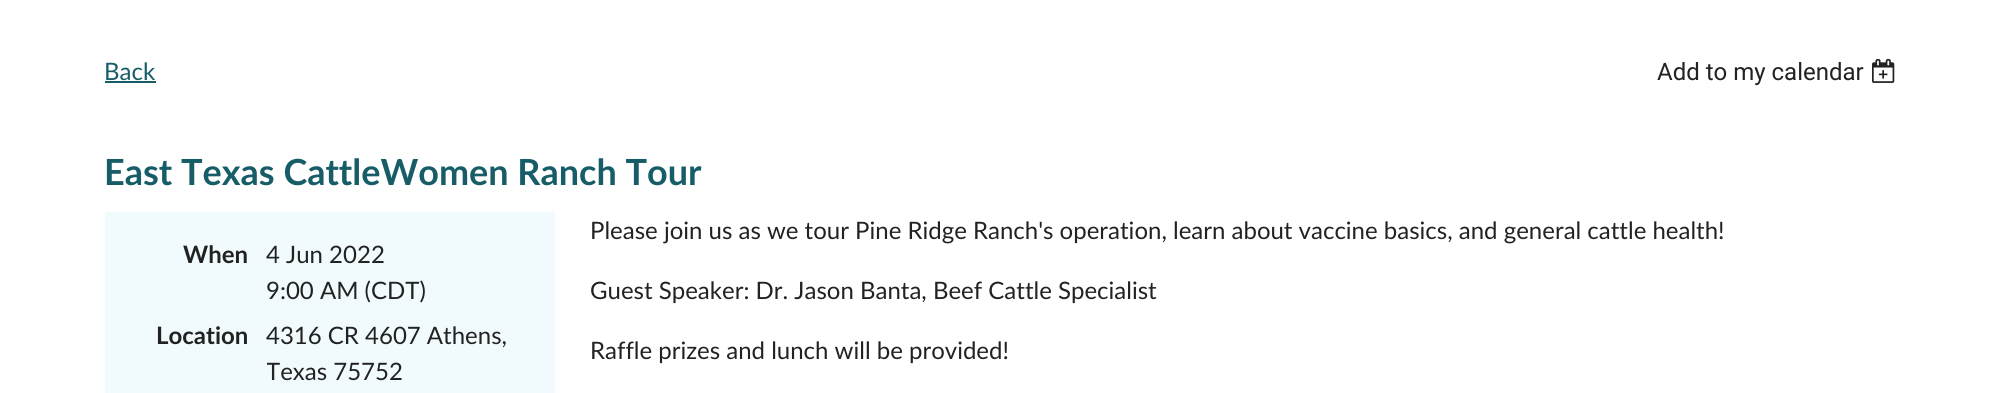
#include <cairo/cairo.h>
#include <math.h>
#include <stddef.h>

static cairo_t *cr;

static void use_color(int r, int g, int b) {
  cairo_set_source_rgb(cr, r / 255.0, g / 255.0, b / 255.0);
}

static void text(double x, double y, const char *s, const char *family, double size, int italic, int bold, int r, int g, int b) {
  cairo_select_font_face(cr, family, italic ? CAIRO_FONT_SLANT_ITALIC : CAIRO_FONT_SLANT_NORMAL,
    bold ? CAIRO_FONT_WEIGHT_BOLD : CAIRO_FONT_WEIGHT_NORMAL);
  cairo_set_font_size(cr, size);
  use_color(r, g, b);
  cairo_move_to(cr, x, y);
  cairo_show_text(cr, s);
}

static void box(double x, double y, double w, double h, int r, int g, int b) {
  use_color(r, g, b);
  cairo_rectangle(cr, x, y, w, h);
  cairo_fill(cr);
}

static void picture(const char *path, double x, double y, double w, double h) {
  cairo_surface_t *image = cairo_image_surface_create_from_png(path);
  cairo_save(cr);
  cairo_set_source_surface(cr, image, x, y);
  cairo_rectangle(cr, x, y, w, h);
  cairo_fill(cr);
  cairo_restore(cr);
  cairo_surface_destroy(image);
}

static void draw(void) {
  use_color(255, 255, 255);
  cairo_paint(cr);
  box(105, 81, 51, 2, 23, 93, 104);
  picture("img_01.png", 1872, 58, 23, 25);
  box(105, 212, 450, 181, 241, 251, 253);
  text(104, 80, "Back", "Lato", 24, 0, 0, 23, 93, 104);
  text(1657, 80, "Add to my calendar", "Roboto", 24, 0, 0, 34, 34, 34);
  text(104, 185, "East Texas CattleWomen Ranch Tour", "Lato", 36, 0, 1, 23, 93, 104);
  text(183, 263, "When", "Lato", 24, 0, 1, 34, 34, 34);
  text(266, 263, "4 Jun 2022", "Lato", 24, 0, 0, 34, 34, 34);
  text(266, 299, "9:00 AM (CDT)", "Lato", 24, 0, 0, 34, 34, 34);
  text(156, 344, "Location", "Lato", 24, 0, 1, 34, 34, 34);
  text(266, 344, "4316 CR 4607 Athens,", "Lato", 24, 0, 0, 34, 34, 34);
  cairo_save(cr);
  cairo_rectangle(cr, 267, 317, 264, 72);
  cairo_clip(cr);
  text(266, 380, "Texas 75752", "Lato", 24, 0, 0, 34, 34, 34);
  cairo_restore(cr);
  text(590, 239, "Please join us as we tour Pine Ridge Ranch's operation, learn about vaccine basics, and general cattle health!", "Lato", 24, 0, 0, 34, 34, 34);
  text(590, 299, "Guest Speaker: Dr. Jason Banta, Beef Cattle Specialist", "Lato", 24, 0, 0, 34, 34, 34);
  text(590, 359, "Raffle prizes and lunch will be provided!", "Lato", 24, 0, 0, 34, 34, 34);
}

int main(void) {
  cairo_surface_t *surface = cairo_image_surface_create(CAIRO_FORMAT_RGB24, 2008, 393);
  cr = cairo_create(surface);
  cairo_font_options_t *options = cairo_font_options_create();
  cairo_font_options_set_hint_metrics(options, CAIRO_HINT_METRICS_OFF);
  cairo_font_options_set_hint_style(options, CAIRO_HINT_STYLE_NONE);
  cairo_set_font_options(cr, options);
  cairo_set_miter_limit(cr, 4);
  draw();
  cairo_surface_write_to_png(surface, "out.png");
  cairo_font_options_destroy(options);
  cairo_destroy(cr);
  cairo_surface_destroy(surface);
  return 0;
}
